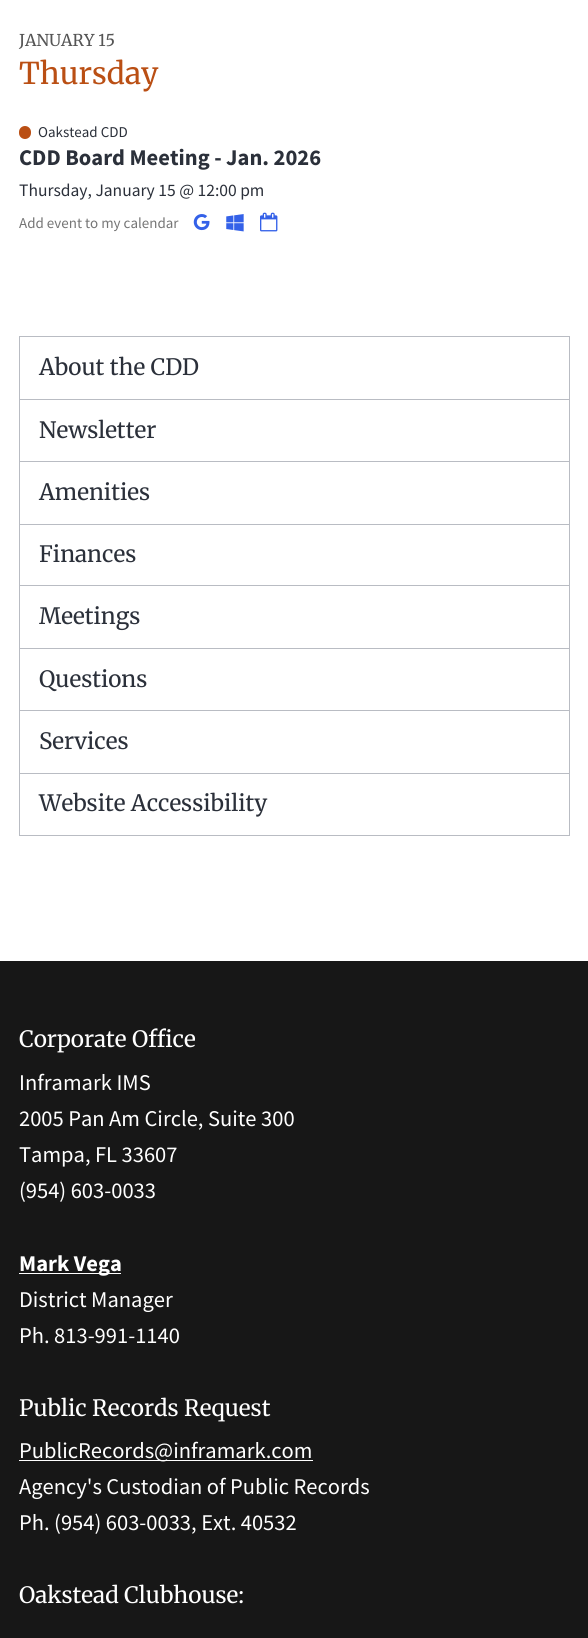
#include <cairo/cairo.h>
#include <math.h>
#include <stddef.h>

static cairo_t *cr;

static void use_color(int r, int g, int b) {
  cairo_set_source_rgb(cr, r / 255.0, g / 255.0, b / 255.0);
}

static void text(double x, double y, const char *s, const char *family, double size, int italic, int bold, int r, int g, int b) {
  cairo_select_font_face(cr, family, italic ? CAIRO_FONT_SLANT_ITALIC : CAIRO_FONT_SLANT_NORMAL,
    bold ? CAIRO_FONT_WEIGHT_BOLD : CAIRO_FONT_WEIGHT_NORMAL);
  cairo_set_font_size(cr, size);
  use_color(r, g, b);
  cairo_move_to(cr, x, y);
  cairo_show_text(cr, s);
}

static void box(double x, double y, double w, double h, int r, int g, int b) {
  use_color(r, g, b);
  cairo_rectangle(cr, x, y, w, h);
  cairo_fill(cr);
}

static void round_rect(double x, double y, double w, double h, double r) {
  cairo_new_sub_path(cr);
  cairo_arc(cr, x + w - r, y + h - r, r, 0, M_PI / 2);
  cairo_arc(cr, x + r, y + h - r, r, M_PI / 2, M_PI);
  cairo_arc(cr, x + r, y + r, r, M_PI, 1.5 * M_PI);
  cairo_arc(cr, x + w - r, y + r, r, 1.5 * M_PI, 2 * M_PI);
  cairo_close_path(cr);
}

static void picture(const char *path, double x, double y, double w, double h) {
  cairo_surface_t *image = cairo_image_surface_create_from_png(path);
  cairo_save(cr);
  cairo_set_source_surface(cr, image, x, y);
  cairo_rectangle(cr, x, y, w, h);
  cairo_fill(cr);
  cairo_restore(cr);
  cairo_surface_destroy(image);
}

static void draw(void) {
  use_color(255, 255, 255);
  cairo_paint(cr);
  use_color(186, 79, 20);
  round_rect(19, 126, 12, 13, 6);
  cairo_fill(cr);
  picture("img_01.png", 193, 214, 17, 17);
  picture("img_02.png", 226, 214, 18, 18);
  picture("img_03.png", 260, 212, 18, 20);
  cairo_rectangle(cr, 19.5, 336.5, 550, 499);
  use_color(185, 188, 195);
  cairo_set_line_width(cr, 1);
  cairo_stroke(cr);
  box(20, 399, 549, 1, 185, 188, 195);
  box(20, 461, 549, 1, 185, 188, 195);
  box(20, 524, 549, 1, 185, 188, 195);
  box(20, 585, 549, 1, 185, 188, 195);
  box(20, 648, 549, 1, 185, 188, 195);
  box(20, 710, 549, 1, 185, 188, 195);
  box(20, 773, 549, 1, 185, 188, 195);
  box(0, 961, 588, 677, 23, 23, 23);
  box(19, 1273, 102, 1, 255, 255, 255);
  box(19, 1460, 294, 1, 255, 255, 255);
  text(19, 46, "JANUARY 15", "Merriweather Light", 16.25, 0, 0, 85, 85, 85);
  text(19, 84, "Thursday", "Merriweather Light", 30, 0, 0, 186, 79, 20);
  text(38, 137, "Oakstead CDD", "Source Sans Pro", 15, 0, 0, 43, 48, 58);
  text(19, 165, "CDD Board Meeting - Jan. 2026", "Source Sans Pro", 22.5, 0, 1, 43, 48, 58);
  text(19, 196, "Thursday, January 15 @ 12:00 pm", "Source Sans Pro", 17.5, 0, 0, 43, 48, 58);
  text(19, 228, "Add event to my calendar", "Source Sans Pro", 15, 0, 0, 117, 117, 117);
  text(39, 375, "About the CDD", "Merriweather Light", 22.5, 0, 0, 43, 48, 58);
  text(39, 438, "Newsletter", "Merriweather Light", 22.5, 0, 0, 43, 48, 58);
  text(39, 500, "Amenities", "Merriweather Light", 22.5, 0, 0, 43, 48, 58);
  text(39, 562, "Finances", "Merriweather Light", 22.5, 0, 0, 43, 48, 58);
  text(39, 624, "Meetings", "Merriweather Light", 22.5, 0, 0, 43, 48, 58);
  text(39, 687, "Questions", "Merriweather Light", 22.5, 0, 0, 43, 48, 58);
  text(39, 749, "Services", "Merriweather Light", 22.5, 0, 0, 43, 48, 58);
  text(39, 811, "Website Accessibility", "Merriweather Light", 22.5, 0, 0, 43, 48, 58);
  text(19, 1047, "Corporate Office", "Merriweather Light", 22.5, 0, 0, 255, 255, 255);
  text(19, 1090, "Inframark IMS", "Source Sans Pro", 22.5, 0, 0, 255, 255, 255);
  text(19, 1126, "2005 Pan Am Circle, Suite 300", "Source Sans Pro", 22.5, 0, 0, 255, 255, 255);
  text(19, 1162, "Tampa, FL 33607", "Source Sans Pro", 22.5, 0, 0, 255, 255, 255);
  text(19, 1198, "(954) 603-0033", "Source Sans Pro", 22.5, 0, 0, 255, 255, 255);
  text(19, 1271, "Mark Vega", "Source Sans Pro", 22.5, 0, 1, 255, 255, 255);
  text(19, 1307, "District Manager", "Source Sans Pro", 22.5, 0, 0, 255, 255, 255);
  text(19, 1343, "Ph. 813-991-1140", "Source Sans Pro", 22.5, 0, 0, 255, 255, 255);
  text(19, 1416, "Public Records Request", "Merriweather Light", 22.5, 0, 0, 255, 255, 255);
  text(19, 1458, "PublicRecords@inframark.com", "Source Sans Pro", 22.5, 0, 0, 255, 255, 255);
  text(19, 1494, "Agency's Custodian of Public Records", "Source Sans Pro", 22.5, 0, 0, 255, 255, 255);
  text(19, 1530, "Ph. (954) 603-0033, Ext. 40532", "Source Sans Pro", 22.5, 0, 0, 255, 255, 255);
  text(19, 1603, "Oakstead Clubhouse:", "Merriweather Light", 22.5, 0, 0, 255, 255, 255);
}

int main(void) {
  cairo_surface_t *surface = cairo_image_surface_create(CAIRO_FORMAT_RGB24, 588, 1638);
  cr = cairo_create(surface);
  cairo_font_options_t *options = cairo_font_options_create();
  cairo_font_options_set_hint_metrics(options, CAIRO_HINT_METRICS_OFF);
  cairo_font_options_set_hint_style(options, CAIRO_HINT_STYLE_NONE);
  cairo_set_font_options(cr, options);
  cairo_set_miter_limit(cr, 4);
  draw();
  cairo_surface_write_to_png(surface, "out.png");
  cairo_font_options_destroy(options);
  cairo_destroy(cr);
  cairo_surface_destroy(surface);
  return 0;
}
